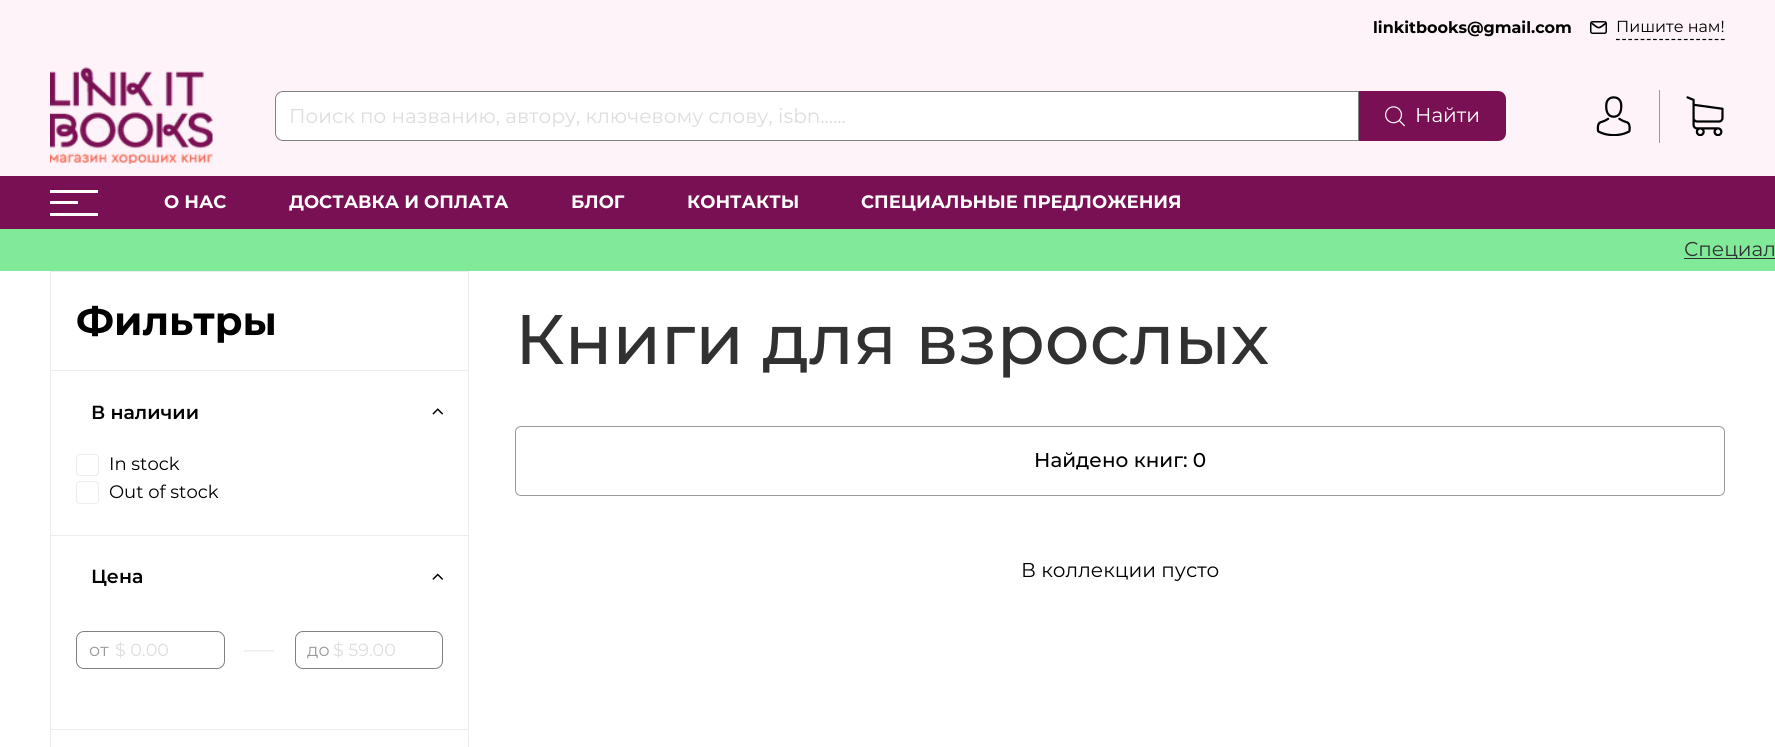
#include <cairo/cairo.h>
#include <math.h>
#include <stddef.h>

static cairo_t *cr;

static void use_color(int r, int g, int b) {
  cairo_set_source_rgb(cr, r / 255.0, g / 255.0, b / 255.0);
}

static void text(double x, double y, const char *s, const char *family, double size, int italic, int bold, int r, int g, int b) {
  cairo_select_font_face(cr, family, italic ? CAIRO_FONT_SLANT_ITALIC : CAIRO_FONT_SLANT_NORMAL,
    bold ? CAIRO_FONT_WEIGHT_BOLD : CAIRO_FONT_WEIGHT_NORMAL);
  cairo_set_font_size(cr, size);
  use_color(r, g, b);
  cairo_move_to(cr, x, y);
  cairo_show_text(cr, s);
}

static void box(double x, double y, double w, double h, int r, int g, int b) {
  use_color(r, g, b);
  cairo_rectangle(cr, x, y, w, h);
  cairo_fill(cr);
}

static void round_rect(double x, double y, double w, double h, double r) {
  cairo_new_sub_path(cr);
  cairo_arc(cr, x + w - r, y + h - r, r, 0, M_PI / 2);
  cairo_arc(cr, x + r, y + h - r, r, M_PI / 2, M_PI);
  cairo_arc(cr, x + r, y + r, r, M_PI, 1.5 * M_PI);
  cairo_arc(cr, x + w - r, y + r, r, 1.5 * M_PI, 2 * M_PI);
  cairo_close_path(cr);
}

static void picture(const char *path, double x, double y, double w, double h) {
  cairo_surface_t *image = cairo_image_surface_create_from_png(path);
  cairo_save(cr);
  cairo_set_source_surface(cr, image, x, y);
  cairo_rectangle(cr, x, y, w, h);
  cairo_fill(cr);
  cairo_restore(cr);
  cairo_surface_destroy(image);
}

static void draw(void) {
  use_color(255, 255, 255);
  cairo_paint(cr);
  box(0, 0, 1775, 176, 253, 243, 248);
  cairo_new_path(cr);
  cairo_move_to(cr, 1592, 23.5);
  cairo_curve_to(cr, 1599.5, 29, 1598, 29, 1605.5, 23.5);
  use_color(0, 0, 0);
  cairo_set_line_width(cr, 1.7);
  cairo_set_line_cap(cr, CAIRO_LINE_CAP_ROUND);
  cairo_set_line_join(cr, CAIRO_LINE_JOIN_ROUND);
  cairo_stroke(cr);
  round_rect(1590.75, 21.75, 15.5, 11.5, 1.75);
  cairo_set_line_width(cr, 1.5);
  cairo_set_line_cap(cr, CAIRO_LINE_CAP_BUTT);
  cairo_set_line_join(cr, CAIRO_LINE_JOIN_MITER);
  cairo_stroke(cr);
  cairo_new_path(cr);
  cairo_move_to(cr, 1616, 39.5);
  cairo_line_to(cr, 1725, 39.5);
  cairo_set_line_width(cr, 1.2);
  cairo_set_dash(cr, (double[]){3.75, 2.42}, 2, 0);
  cairo_stroke(cr);
  picture("img_01.png", 50, 67, 163, 97);
  use_color(255, 255, 255);
  cairo_new_path(cr);
  cairo_move_to(cr, 283, 91.5);
  cairo_line_to(cr, 1358.5, 91.5);
  cairo_line_to(cr, 1358.5, 140.5);
  cairo_line_to(cr, 283, 140.5);
  cairo_curve_to(cr, 279, 140.5, 275.5, 137, 275.5, 133);
  cairo_line_to(cr, 275.5, 99);
  cairo_curve_to(cr, 275.5, 95, 279, 91.5, 283, 91.5);
  cairo_close_path(cr);
  cairo_fill_preserve(cr);
  use_color(128, 128, 128);
  cairo_set_line_width(cr, 1);
  cairo_set_dash(cr, NULL, 0, 0);
  cairo_stroke(cr);
  use_color(122, 16, 84);
  cairo_new_path(cr);
  cairo_move_to(cr, 1359, 91);
  cairo_line_to(cr, 1498, 91);
  cairo_curve_to(cr, 1502.5, 91, 1506, 94.5, 1506, 99);
  cairo_line_to(cr, 1506, 133);
  cairo_curve_to(cr, 1506, 137.5, 1502.5, 141, 1498, 141);
  cairo_line_to(cr, 1359, 141);
  cairo_close_path(cr);
  cairo_fill(cr);
  picture("img_02.png", 1385, 106, 20, 21);
  box(1659, 90, 1, 53, 153, 153, 153);
  picture("img_03.png", 1596, 96, 35, 40);
  picture("img_04.png", 1686, 96, 38, 40);
  box(0, 176, 1775, 53, 122, 16, 84);
  box(50, 190, 48, 3, 255, 255, 255);
  box(50, 201, 28, 3, 255, 255, 255);
  box(50, 213, 48, 3, 255, 255, 255);
  box(0, 229, 1775, 42, 129, 234, 152);
  box(1684, 258, 91, 1, 49, 49, 49);
  cairo_rectangle(cr, 50.5, 271.5, 418, 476);
  use_color(237, 237, 237);
  cairo_stroke(cr);
  box(51, 370, 417, 1, 237, 237, 237);
  box(51, 535, 417, 1, 237, 237, 237);
  picture("img_05.png", 432, 408, 11, 7);
  round_rect(76.5, 454.5, 22, 21, 3.5);
  cairo_stroke(cr);
  round_rect(76.5, 481.5, 22, 22, 3.5);
  cairo_stroke(cr);
  box(51, 729, 417, 1, 237, 237, 237);
  picture("img_06.png", 432, 573, 11, 7);
  round_rect(76.5, 631.5, 148, 37, 7.5);
  use_color(128, 128, 128);
  cairo_stroke(cr);
  round_rect(295.5, 631.5, 147, 37, 7.5);
  cairo_stroke(cr);
  round_rect(515.5, 426.5, 1209, 69, 5.5);
  use_color(153, 153, 153);
  cairo_stroke(cr);
  text(1373, 33, "linkitbooks@gmail.com", "Montserrat", 16, 0, 1, 0, 0, 0);
  text(1616, 32, "Пишите нам!", "Montserrat", 16, 0, 0, 0, 0, 0);
  text(289, 123, "Поиск по названию, автору, ключевому слову, isbn......", "Montserrat", 20, 0, 0, 221, 221, 221);
  text(1415, 122, "Найти", "Montserrat", 20, 0, 0, 255, 255, 255);
  text(164, 208, "О НАС", "Montserrat", 18, 0, 1, 255, 255, 255);
  text(289, 208, "ДОСТАВКА И ОПЛАТА", "Montserrat", 18, 0, 1, 255, 255, 255);
  text(571, 208, "БЛОГ", "Montserrat", 18, 0, 1, 255, 255, 255);
  text(687, 208, "КОНТАКТЫ", "Montserrat", 18, 0, 1, 255, 255, 255);
  text(861, 208, "СПЕЦИАЛЬНЫЕ ПРЕДЛОЖЕНИЯ", "Montserrat", 18, 0, 1, 255, 255, 255);
  text(1684, 256, "Специал", "Montserrat", 20, 0, 0, 49, 49, 49);
  text(76, 335, "Фильтры", "Montserrat", 40, 0, 1, 0, 0, 0);
  text(91, 419, "В наличии", "Montserrat SemiBold", 19, 0, 0, 0, 0, 0);
  text(109, 470, "In stock", "Montserrat", 18, 0, 0, 0, 0, 0);
  text(109, 498, "Out of stock", "Montserrat", 18, 0, 0, 0, 0, 0);
  text(91, 583, "Цена", "Montserrat SemiBold", 19, 0, 0, 0, 0, 0);
  text(89, 656, "от", "Montserrat", 17.5, 0, 0, 153, 153, 153);
  text(115, 656, "$ 0.00", "Montserrat", 17.5, 0, 0, 221, 221, 221);
  text(244, 659, "—", "Montserrat", 30, 0, 0, 237, 237, 237);
  text(307, 656, "до", "Montserrat", 17.5, 0, 0, 153, 153, 153);
  text(333, 656, "$ 59.00", "Montserrat", 17.5, 0, 0, 221, 221, 221);
  text(515, 364, "Книги для взрослых", "Montserrat Medium", 70, 0, 0, 49, 49, 49);
  text(1034, 467, "Найдено книг: 0", "Montserrat Medium", 20, 0, 0, 0, 0, 0);
  text(1021, 577, "В коллекции пусто", "Montserrat", 20, 0, 0, 0, 0, 0);
}

int main(void) {
  cairo_surface_t *surface = cairo_image_surface_create(CAIRO_FORMAT_RGB24, 1775, 747);
  cr = cairo_create(surface);
  cairo_font_options_t *options = cairo_font_options_create();
  cairo_font_options_set_hint_metrics(options, CAIRO_HINT_METRICS_OFF);
  cairo_font_options_set_hint_style(options, CAIRO_HINT_STYLE_NONE);
  cairo_set_font_options(cr, options);
  cairo_set_miter_limit(cr, 4);
  draw();
  cairo_surface_write_to_png(surface, "out.png");
  cairo_font_options_destroy(options);
  cairo_destroy(cr);
  cairo_surface_destroy(surface);
  return 0;
}
